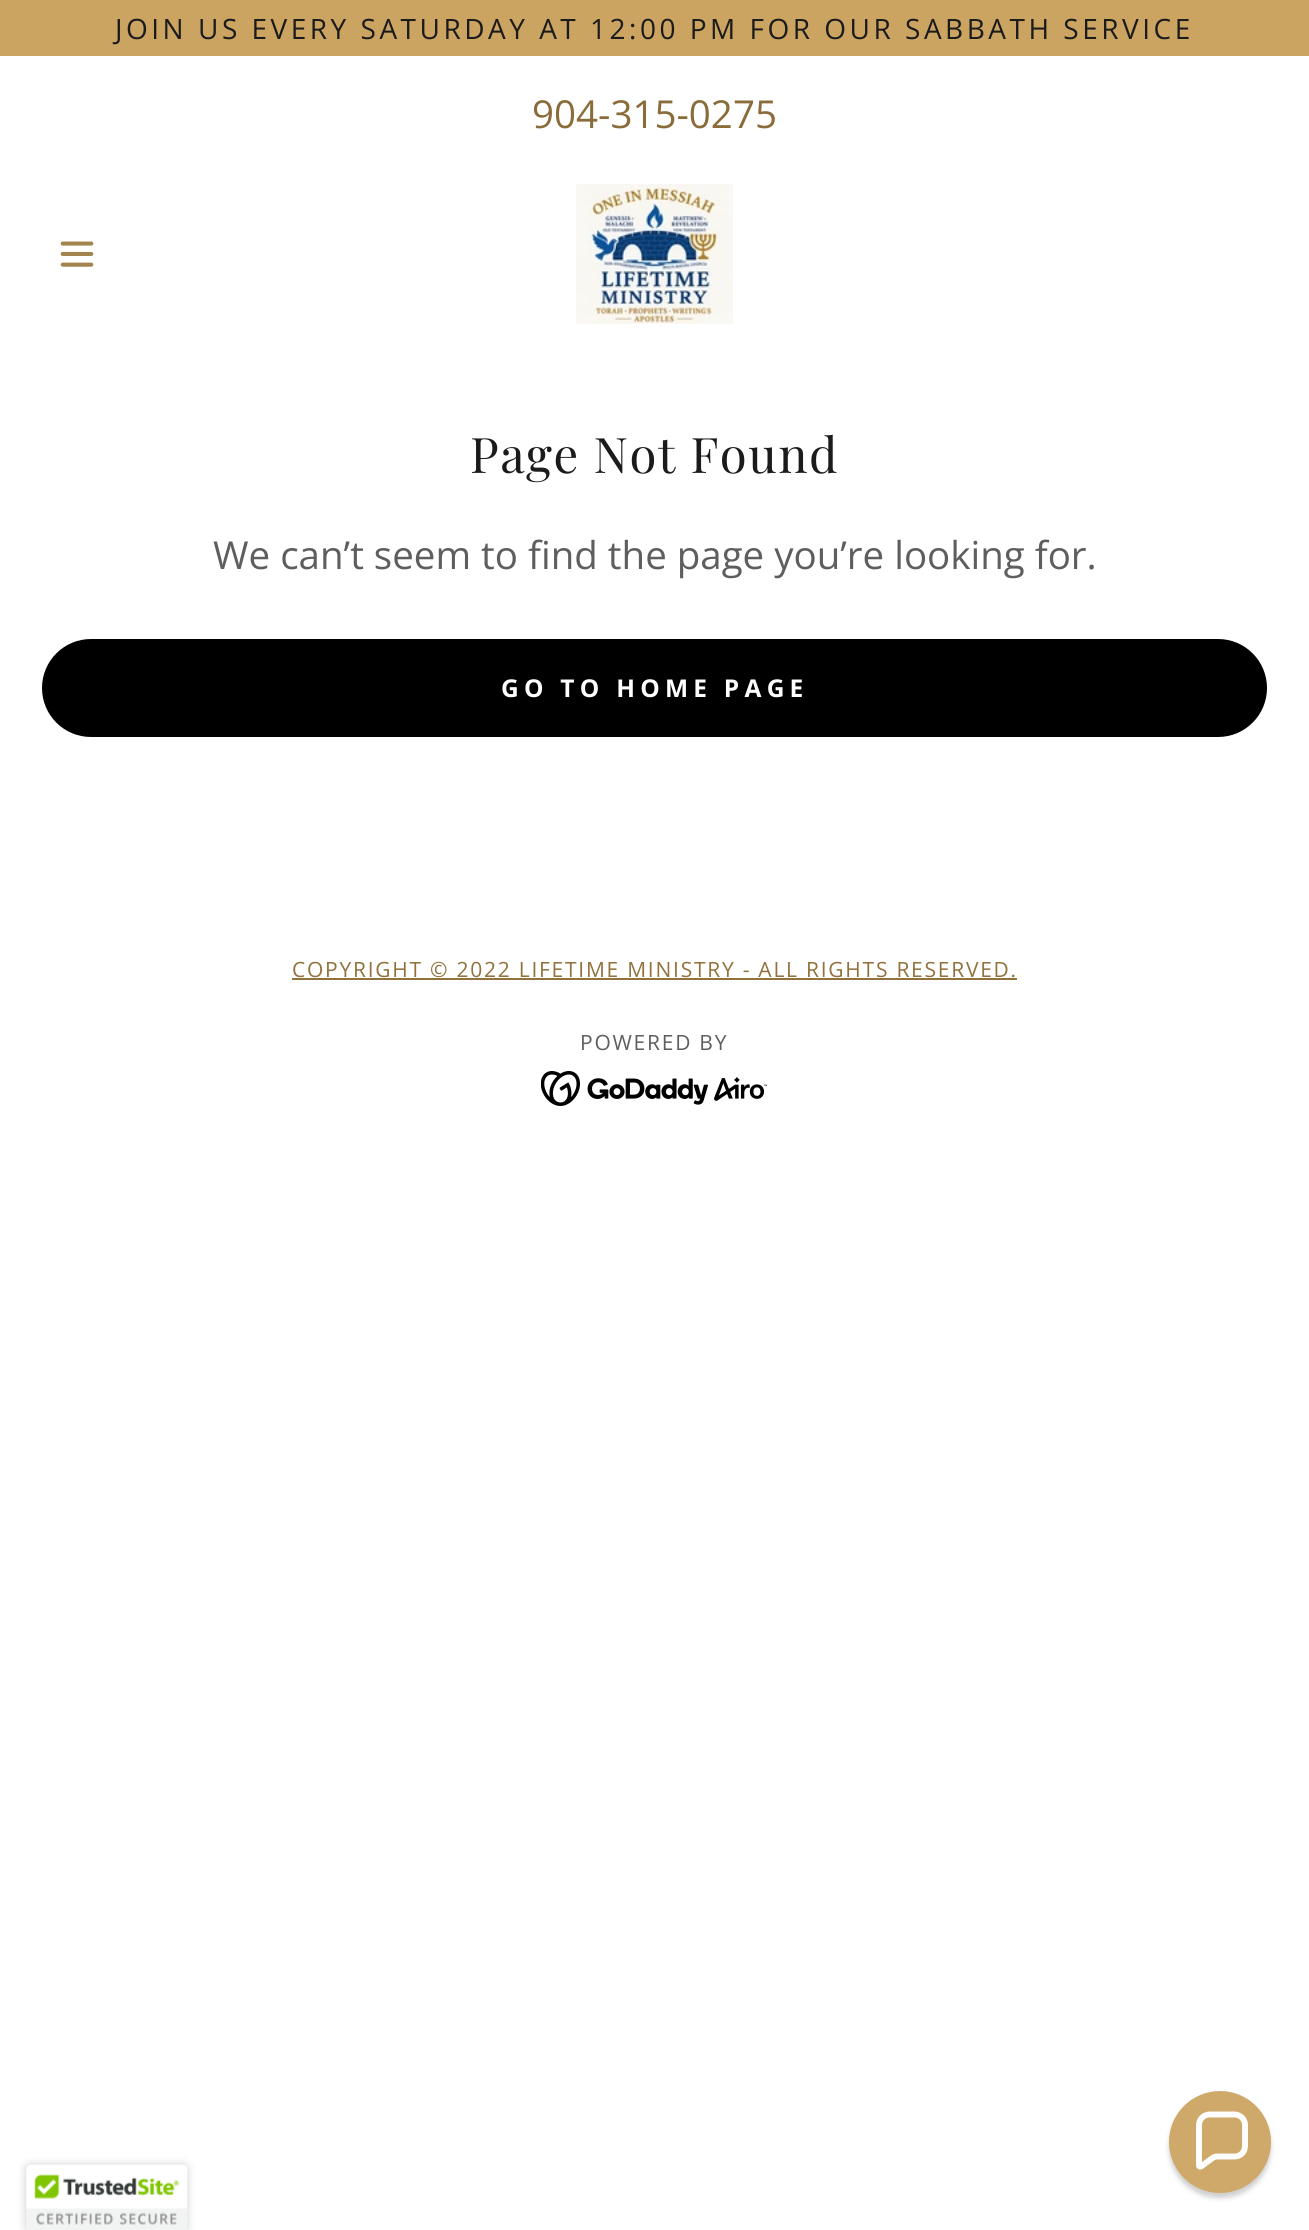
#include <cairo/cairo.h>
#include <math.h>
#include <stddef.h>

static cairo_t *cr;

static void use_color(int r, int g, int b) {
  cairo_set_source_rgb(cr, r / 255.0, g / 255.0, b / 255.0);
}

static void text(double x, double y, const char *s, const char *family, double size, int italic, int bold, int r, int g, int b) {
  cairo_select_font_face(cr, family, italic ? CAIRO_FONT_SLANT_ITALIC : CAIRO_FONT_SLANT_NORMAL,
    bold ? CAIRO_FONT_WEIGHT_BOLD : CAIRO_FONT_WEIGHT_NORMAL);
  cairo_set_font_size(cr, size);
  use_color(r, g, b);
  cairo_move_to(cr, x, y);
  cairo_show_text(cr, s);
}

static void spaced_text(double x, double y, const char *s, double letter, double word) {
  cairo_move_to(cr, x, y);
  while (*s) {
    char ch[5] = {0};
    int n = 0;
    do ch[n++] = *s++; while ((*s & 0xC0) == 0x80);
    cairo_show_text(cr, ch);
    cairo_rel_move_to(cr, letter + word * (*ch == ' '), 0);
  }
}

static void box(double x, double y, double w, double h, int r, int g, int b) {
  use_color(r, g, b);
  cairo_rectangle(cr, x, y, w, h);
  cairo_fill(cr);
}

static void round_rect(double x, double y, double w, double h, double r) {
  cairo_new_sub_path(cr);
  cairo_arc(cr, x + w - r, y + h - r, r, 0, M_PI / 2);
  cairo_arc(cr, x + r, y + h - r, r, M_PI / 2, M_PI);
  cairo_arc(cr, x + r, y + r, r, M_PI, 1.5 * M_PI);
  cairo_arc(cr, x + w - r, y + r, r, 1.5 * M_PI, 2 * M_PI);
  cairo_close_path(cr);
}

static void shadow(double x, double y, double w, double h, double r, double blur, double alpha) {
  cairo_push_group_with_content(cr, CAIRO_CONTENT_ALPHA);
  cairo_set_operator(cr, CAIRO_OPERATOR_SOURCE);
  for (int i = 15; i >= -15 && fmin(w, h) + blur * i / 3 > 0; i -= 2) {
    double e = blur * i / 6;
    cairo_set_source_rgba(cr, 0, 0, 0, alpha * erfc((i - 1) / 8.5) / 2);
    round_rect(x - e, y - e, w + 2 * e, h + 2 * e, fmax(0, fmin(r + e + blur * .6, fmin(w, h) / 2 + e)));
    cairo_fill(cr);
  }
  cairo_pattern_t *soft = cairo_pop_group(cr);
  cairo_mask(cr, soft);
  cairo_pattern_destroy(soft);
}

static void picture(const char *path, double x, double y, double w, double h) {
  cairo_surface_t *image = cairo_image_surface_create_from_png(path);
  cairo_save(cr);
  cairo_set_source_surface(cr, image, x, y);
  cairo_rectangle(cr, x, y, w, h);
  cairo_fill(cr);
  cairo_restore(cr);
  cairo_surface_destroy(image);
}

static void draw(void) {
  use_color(255, 255, 255);
  cairo_paint(cr);
  box(0, 0, 1309, 56, 204, 164, 98);
  picture("img_01.png", 60, 241, 34, 26);
  picture("img_02.png", 576, 183, 157, 141);
  use_color(0, 0, 0);
  round_rect(42, 639, 1225, 98, 49);
  cairo_fill(cr);
  box(292, 978, 725, 2, 145, 113, 60);
  picture("img_03.png", 541, 1071, 227, 35);
  use_color(0, 0, 0);
  shadow(26, 2165, 161, 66, 4, 4.5, 0.2);
  picture("img_04.png", 26, 2164, 162, 66);
  use_color(13, 13, 13);
  shadow(1169, 2097, 102, 101, 50.5, 2.5, 0.2);
  use_color(207, 169, 106);
  cairo_arc(cr, 1220, 2142, 51, 0, 2 * M_PI);
  cairo_fill(cr);
  cairo_new_path(cr);
  cairo_move_to(cr, 1234.5, 2114.5);
  cairo_line_to(cr, 1209.5, 2114.5);
  cairo_curve_to(cr, 1203.5, 2114.5, 1199, 2119.5, 1199, 2125);
  cairo_line_to(cr, 1199, 2165.5);
  cairo_curve_to(cr, 1199, 2166.5, 1200, 2167, 1201, 2166.5);
  cairo_line_to(cr, 1212.5, 2158);
  cairo_curve_to(cr, 1214, 2157, 1215.5, 2156.5, 1217.5, 2156.5);
  cairo_line_to(cr, 1234.5, 2156.5);
  cairo_curve_to(cr, 1240.5, 2156.5, 1245, 2152, 1245, 2146);
  cairo_line_to(cr, 1245, 2125);
  cairo_curve_to(cr, 1245, 2119.5, 1240.5, 2114.5, 1234.5, 2114.5);
  cairo_close_path(cr);
  use_color(255, 255, 255);
  cairo_set_line_width(cr, 5.9);
  cairo_stroke(cr);
  cairo_select_font_face(cr, "Open Sans", CAIRO_FONT_SLANT_NORMAL, CAIRO_FONT_WEIGHT_NORMAL);
  cairo_set_font_size(cr, 28);
  use_color(27, 27, 27);
  spaced_text(115, 39, "JOIN US EVERY SATURDAY AT 12:00 PM FOR OUR SABBATH SERVICE", 3.5, 0);
  text(532, 128, "904-315-0275", "Open Sans", 38.5, 0, 0, 138, 108, 59);
  cairo_select_font_face(cr, "Playfair Display", CAIRO_FONT_SLANT_NORMAL, CAIRO_FONT_WEIGHT_NORMAL);
  cairo_set_font_size(cr, 49);
  use_color(27, 27, 27);
  spaced_text(470, 473, "Page Not Found", 1.5, 0);
  text(213, 569, "We can’t seem to find the page you’re looking for.", "Open Sans", 38.5, 0, 0, 94, 94, 94);
  cairo_select_font_face(cr, "Open Sans", CAIRO_FONT_SLANT_NORMAL, CAIRO_FONT_WEIGHT_BOLD);
  cairo_set_font_size(cr, 24.5);
  use_color(255, 255, 255);
  spaced_text(501, 697, "GO TO HOME PAGE", 5.25, 0);
  cairo_select_font_face(cr, "Open Sans", CAIRO_FONT_SLANT_NORMAL, CAIRO_FONT_WEIGHT_NORMAL);
  cairo_set_font_size(cr, 21);
  use_color(145, 113, 60);
  spaced_text(292, 977, "COPYRIGHT © 2022 LIFETIME MINISTRY - ALL RIGHTS RESERVED.", 1.75, 0);
  use_color(94, 94, 94);
  spaced_text(580, 1050, "POWERED BY", 1.75, 0);
}

int main(void) {
  cairo_surface_t *surface = cairo_image_surface_create(CAIRO_FORMAT_RGB24, 1309, 2230);
  cr = cairo_create(surface);
  cairo_font_options_t *options = cairo_font_options_create();
  cairo_font_options_set_hint_metrics(options, CAIRO_HINT_METRICS_OFF);
  cairo_font_options_set_hint_style(options, CAIRO_HINT_STYLE_NONE);
  cairo_set_font_options(cr, options);
  cairo_set_miter_limit(cr, 4);
  draw();
  cairo_surface_write_to_png(surface, "out.png");
  cairo_font_options_destroy(options);
  cairo_destroy(cr);
  cairo_surface_destroy(surface);
  return 0;
}
